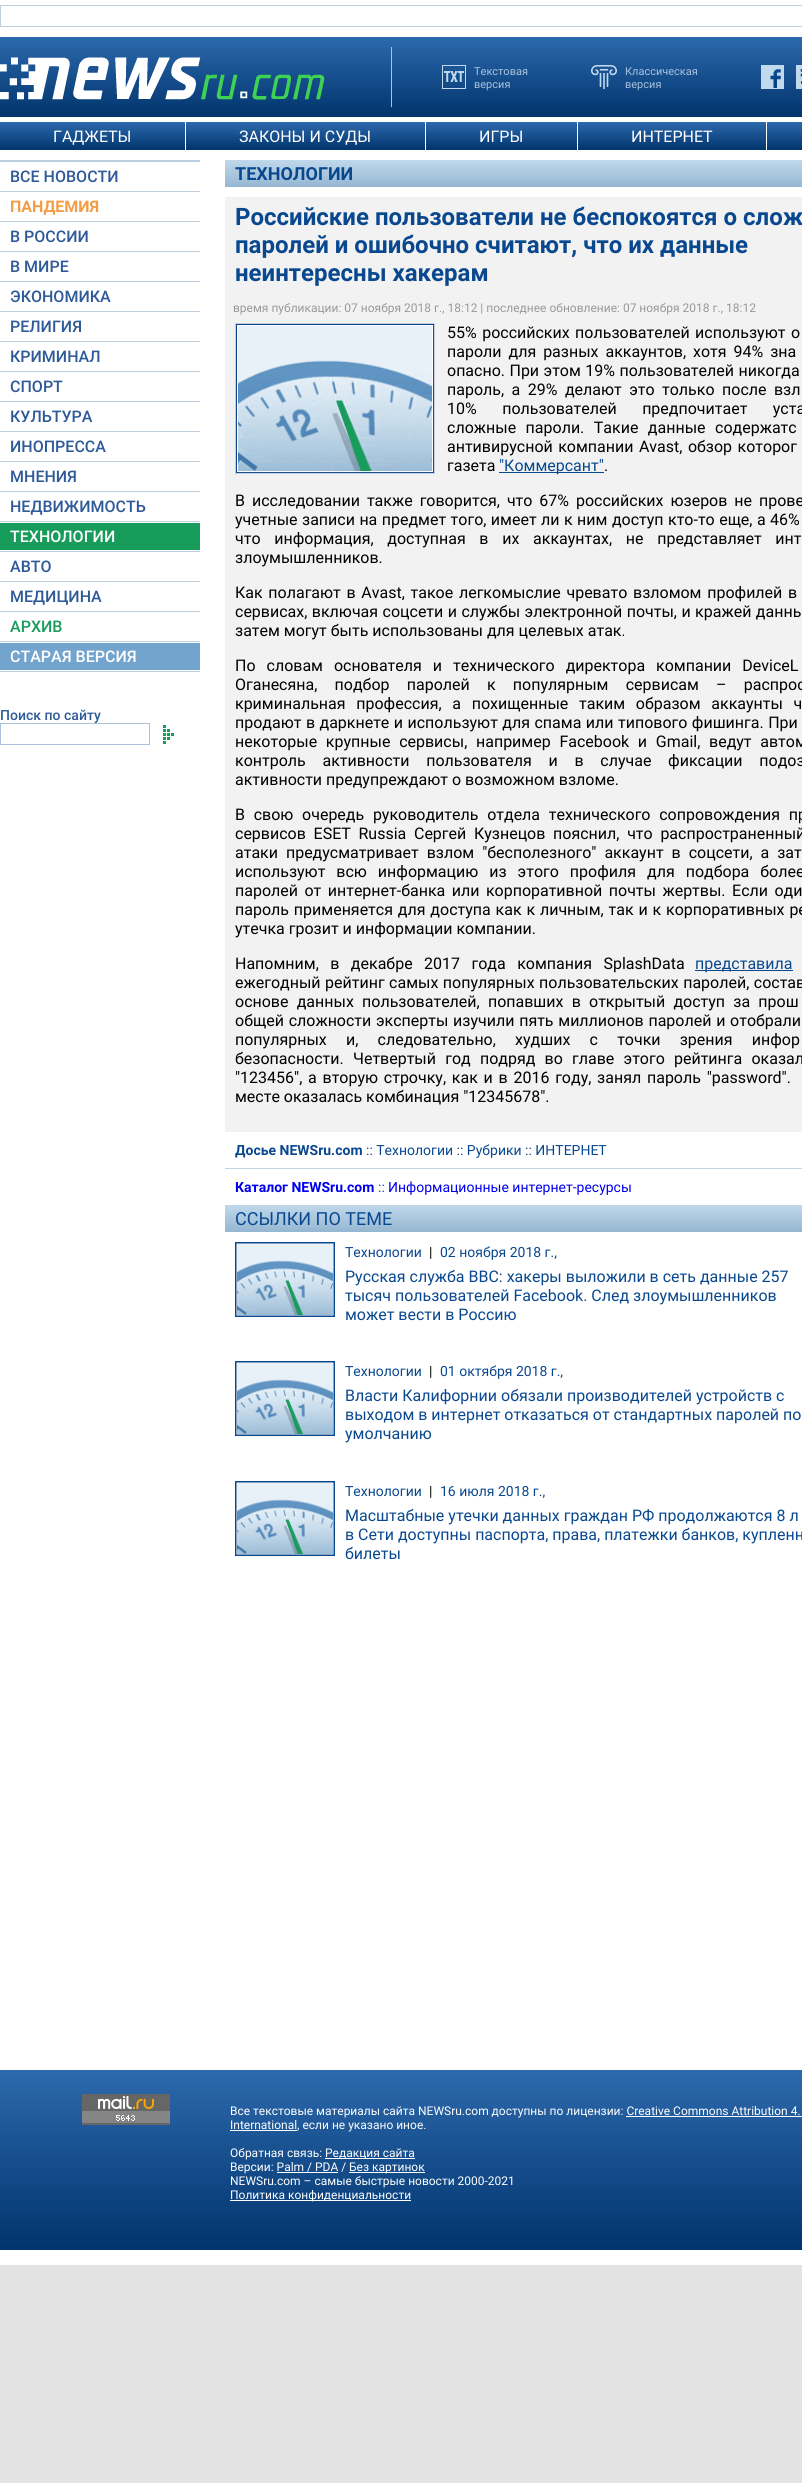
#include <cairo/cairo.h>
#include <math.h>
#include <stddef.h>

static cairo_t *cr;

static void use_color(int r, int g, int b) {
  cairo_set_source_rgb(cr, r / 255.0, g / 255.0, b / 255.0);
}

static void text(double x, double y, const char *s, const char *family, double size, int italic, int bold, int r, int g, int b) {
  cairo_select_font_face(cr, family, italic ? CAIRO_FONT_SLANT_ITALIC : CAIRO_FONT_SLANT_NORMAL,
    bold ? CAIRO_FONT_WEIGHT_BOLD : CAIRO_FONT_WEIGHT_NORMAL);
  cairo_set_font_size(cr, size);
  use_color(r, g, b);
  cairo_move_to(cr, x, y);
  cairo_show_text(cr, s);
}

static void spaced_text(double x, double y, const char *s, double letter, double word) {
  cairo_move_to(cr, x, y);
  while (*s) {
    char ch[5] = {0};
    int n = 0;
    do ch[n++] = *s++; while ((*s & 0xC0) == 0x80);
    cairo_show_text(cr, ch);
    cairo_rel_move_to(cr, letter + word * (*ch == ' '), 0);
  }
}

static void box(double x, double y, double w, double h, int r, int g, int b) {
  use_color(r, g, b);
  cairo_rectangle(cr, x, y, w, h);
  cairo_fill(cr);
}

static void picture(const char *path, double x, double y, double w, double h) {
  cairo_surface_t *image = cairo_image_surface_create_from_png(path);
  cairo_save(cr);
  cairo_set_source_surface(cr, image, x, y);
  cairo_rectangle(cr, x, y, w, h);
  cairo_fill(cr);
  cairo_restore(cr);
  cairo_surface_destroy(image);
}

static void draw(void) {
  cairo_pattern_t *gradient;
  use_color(227, 227, 227);
  cairo_paint(cr);
  box(0, 0, 802, 2070, 255, 255, 255);
  cairo_rectangle(cr, 0.5, 5.5, 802, 21);
  use_color(191, 207, 226);
  cairo_set_line_width(cr, 1);
  cairo_stroke(cr);
  gradient = cairo_pattern_create_linear(625, 37, 625, 117);
  cairo_pattern_add_color_stop_rgba(gradient, 0, 0.176, 0.412, 0.678, 1);
  cairo_pattern_add_color_stop_rgba(gradient, 1, 0, 0.204, 0.427, 1);
  cairo_set_source(cr, gradient);
  cairo_pattern_destroy(gradient);
  cairo_rectangle(cr, 0, 37, 802, 80);
  cairo_fill(cr);
  picture("img_01.png", 0, 57, 325, 43);
  box(391, 47, 1, 60, 170, 194, 219);
  picture("img_02.png", 442, 65, 24, 24);
  picture("img_03.png", 591, 65, 26, 24);
  picture("img_04.png", 761, 65, 23, 24);
  picture("img_05.png", 796, 65, 6, 24);
  gradient = cairo_pattern_create_linear(625, 122, 625, 150);
  cairo_pattern_add_color_stop_rgba(gradient, 0, 0.176, 0.412, 0.678, 1);
  cairo_pattern_add_color_stop_rgba(gradient, 1, 0, 0.204, 0.427, 1);
  cairo_set_source(cr, gradient);
  cairo_pattern_destroy(gradient);
  cairo_rectangle(cr, 0, 122, 802, 28);
  cairo_fill(cr);
  box(185, 122, 1, 29, 255, 255, 255);
  box(425, 122, 1, 29, 255, 255, 255);
  box(577, 122, 1, 29, 255, 255, 255);
  box(766, 122, 1, 29, 255, 255, 255);
  box(0, 160, 200, 2, 191, 207, 226);
  box(0, 191, 200, 1, 191, 207, 226);
  box(0, 221, 200, 1, 191, 207, 226);
  box(0, 251, 200, 1, 191, 207, 226);
  box(0, 281, 200, 1, 191, 207, 226);
  box(0, 311, 200, 1, 191, 207, 226);
  box(0, 341, 200, 1, 191, 207, 226);
  box(0, 371, 200, 1, 191, 207, 226);
  box(0, 401, 200, 1, 191, 207, 226);
  box(0, 431, 200, 1, 191, 207, 226);
  box(0, 461, 200, 1, 191, 207, 226);
  box(0, 491, 200, 1, 191, 207, 226);
  box(0, 521, 200, 1, 191, 207, 226);
  box(0, 551, 200, 1, 191, 207, 226);
  box(0, 523, 200, 27, 24, 156, 91);
  box(0, 581, 200, 1, 191, 207, 226);
  box(0, 611, 200, 1, 191, 207, 226);
  box(0, 641, 200, 1, 191, 207, 226);
  box(0, 671, 200, 1, 191, 207, 226);
  box(0, 643, 200, 27, 115, 164, 205);
  cairo_rectangle(cr, 0.5, 723.5, 149, 21);
  use_color(170, 194, 219);
  cairo_stroke(cr);
  gradient = cairo_pattern_create_linear(560, 160, 560, 187);
  cairo_pattern_add_color_stop_rgba(gradient, 0, 0.753, 0.847, 0.925, 1);
  cairo_pattern_add_color_stop_rgba(gradient, 1, 0.584, 0.714, 0.82, 1);
  cairo_set_source(cr, gradient);
  cairo_pattern_destroy(gradient);
  cairo_rectangle(cr, 225, 160, 577, 27);
  cairo_fill(cr);
  box(225, 197, 577, 935, 242, 242, 242);
  cairo_rectangle(cr, 235.5, 323.5, 199, 150);
  use_color(199, 206, 223);
  cairo_stroke(cr);
  picture("img_07.png", 236, 324, 198, 149);
  box(499, 472, 105, 1, 9, 72, 143);
  box(695, 970, 98, 1, 9, 72, 143);
  box(225, 1168, 577, 1, 195, 210, 228);
  gradient = cairo_pattern_create_linear(560, 1205, 560, 1232);
  cairo_pattern_add_color_stop_rgba(gradient, 0, 0.753, 0.847, 0.925, 1);
  cairo_pattern_add_color_stop_rgba(gradient, 1, 0.584, 0.714, 0.82, 1);
  cairo_set_source(cr, gradient);
  cairo_pattern_destroy(gradient);
  cairo_rectangle(cr, 225, 1205, 577, 27);
  cairo_fill(cr);
  cairo_rectangle(cr, 235.5, 1242.5, 99, 74);
  use_color(9, 72, 143);
  cairo_stroke(cr);
  picture("img_08.png", 236, 1243, 98, 73);
  cairo_rectangle(cr, 235.5, 1361.5, 99, 74);
  cairo_stroke(cr);
  picture("img_08.png", 236, 1362, 98, 73);
  cairo_rectangle(cr, 235.5, 1481.5, 99, 74);
  cairo_stroke(cr);
  picture("img_08.png", 236, 1482, 98, 73);
  gradient = cairo_pattern_create_linear(625, 2070, 625, 2250);
  cairo_pattern_add_color_stop_rgba(gradient, 0, 0.176, 0.412, 0.678, 1);
  cairo_pattern_add_color_stop_rgba(gradient, 1, 0, 0.204, 0.427, 1);
  cairo_set_source(cr, gradient);
  cairo_pattern_destroy(gradient);
  cairo_rectangle(cr, 0, 2070, 802, 180);
  cairo_fill(cr);
  picture("img_09.png", 82, 2094, 88, 31);
  box(626, 2116, 176, 1, 255, 255, 255);
  box(230, 2130, 67, 1, 255, 255, 255);
  box(325, 2158, 90, 1, 255, 255, 255);
  box(349, 2172, 76, 1, 255, 255, 255);
  box(277, 2172, 61, 1, 255, 255, 255);
  box(230, 2200, 181, 1, 255, 255, 255);
  cairo_rectangle(cr, -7.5, -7.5, 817, 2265);
  cairo_set_line_width(cr, 15);
  cairo_stroke(cr);
  picture("img_06.png", 163, 725, 11, 19);
  text(474, 75, "Текстовая", "Roboto", 11, 0, 0, 170, 194, 219);
  text(474, 88, "версия", "Roboto", 11, 0, 0, 170, 194, 219);
  text(625, 75, "Классическая", "Roboto", 11, 0, 0, 170, 194, 219);
  text(625, 88, "версия", "Roboto", 11, 0, 0, 170, 194, 219);
  text(53, 142, "ГАДЖЕТЫ", "Roboto", 16, 0, 0, 255, 255, 255);
  text(239, 142, "ЗАКОНЫ И СУДЫ", "Roboto", 16, 0, 0, 255, 255, 255);
  text(479, 142, "ИГРЫ", "Roboto", 16, 0, 0, 255, 255, 255);
  text(631, 142, "ИНТЕРНЕТ", "Roboto", 16, 0, 0, 255, 255, 255);
  text(10, 182, "ВСЕ НОВОСТИ", "Roboto Medium", 16, 0, 0, 46, 90, 152);
  text(10, 212, "ПАНДЕМИЯ", "Roboto", 16, 0, 1, 243, 157, 70);
  text(10, 242, "В РОССИИ", "Roboto Medium", 16, 0, 0, 46, 90, 152);
  text(10, 272, "В МИРЕ", "Roboto Medium", 16, 0, 0, 46, 90, 152);
  text(10, 302, "ЭКОНОМИКА", "Roboto Medium", 16, 0, 0, 46, 90, 152);
  text(10, 332, "РЕЛИГИЯ", "Roboto Medium", 16, 0, 0, 46, 90, 152);
  text(10, 362, "КРИМИНАЛ", "Roboto Medium", 16, 0, 0, 46, 90, 152);
  text(10, 392, "СПОРТ", "Roboto Medium", 16, 0, 0, 46, 90, 152);
  text(10, 422, "КУЛЬТУРА", "Roboto Medium", 16, 0, 0, 46, 90, 152);
  text(10, 452, "ИНОПРЕССА", "Roboto Medium", 16, 0, 0, 46, 90, 152);
  text(10, 482, "МНЕНИЯ", "Roboto Medium", 16, 0, 0, 46, 90, 152);
  text(10, 512, "НЕДВИЖИМОСТЬ", "Roboto Medium", 16, 0, 0, 46, 90, 152);
  text(10, 542, "ТЕХНОЛОГИИ", "Roboto Medium", 16, 0, 0, 255, 255, 255);
  text(10, 572, "АВТО", "Roboto Medium", 16, 0, 0, 46, 90, 152);
  text(10, 602, "МЕДИЦИНА", "Roboto Medium", 16, 0, 0, 46, 90, 152);
  text(10, 632, "АРХИВ", "Roboto Medium", 16, 0, 0, 24, 156, 91);
  text(10, 662, "СТАРАЯ ВЕРСИЯ", "Roboto Medium", 16, 0, 0, 255, 255, 255);
  text(0, 720, "Поиск по сайту", "Roboto Medium", 14, 0, 0, 46, 90, 152);
  text(235, 180, "ТЕХНОЛОГИИ", "Roboto", 18, 0, 1, 9, 72, 143);
  text(235, 225, "Российские пользователи не беспокоятся о слож", "Roboto", 24, 0, 1, 9, 72, 143);
  text(235, 253, "паролей и ошибочно считают, что их данные", "Roboto", 24, 0, 1, 9, 72, 143);
  text(235, 281, "неинтересны хакерам", "Roboto", 24, 0, 1, 9, 72, 143);
  text(233, 312, "время публикации: 07 ноября 2018 г., 18:12 | последнее обновление: 07 ноября 2018 г., 18:12", "Roboto", 12, 0, 0, 153, 153, 153);
  cairo_set_font_size(cr, 16);
  use_color(0, 0, 0);
  spaced_text(447, 338, "55% российских пользователей используют о", 0, 1.5);
  spaced_text(447, 357, "пароли для разных аккаунтов, хотя 94% зна", 0, 3);
  spaced_text(447, 376, "опасно. При этом 19% пользователей никогда", 0, 0.5);
  spaced_text(447, 395, "пароль, а 29% делают это только после взл", 0, 3.5);
  spaced_text(447, 414, "10% пользователей предпочитает уста", 0, 21.5);
  spaced_text(447, 433, "сложные пароли. Такие данные содержатс", 0, 5.5);
  spaced_text(447, 452, "антивирусной компании Avast, обзор которог", 0, 1.5);
  text(447, 471, "газета", "Roboto", 16, 0, 0, 0, 0, 0);
  text(499, 471, "\"Коммерсант\"", "Roboto", 16, 0, 0, 9, 72, 143);
  text(604, 471, ".", "Roboto", 16, 0, 0, 0, 0, 0);
  spaced_text(235, 506, "В исследовании также говорится, что 67% российских юзеров не прове", 0, 3);
  spaced_text(235, 525, "учетные записи на предмет того, имеет ли к ним доступ кто-то еще, а 46%", 0, 0.5);
  spaced_text(235, 544, "что информация, доступная в их аккаунтах, не представляет инт", 0, 9.75);
  text(235, 563, "злоумышленников.", "Roboto", 16, 0, 0, 0, 0, 0);
  spaced_text(235, 598, "Как полагают в Avast, такое легкомыслие чревато взломом профилей в", 0, 1.75);
  spaced_text(235, 617, "сервисах, включая соцсети и службы электронной почты, и кражей данны", 0, 0.5);
  text(235, 636, "затем могут быть использованы для целевых атак.", "Roboto", 16, 0, 0, 0, 0, 0);
  spaced_text(235, 671, "По словам основателя и технического директора компании DeviceL", 0, 7);
  spaced_text(235, 690, "Оганесяна, подбор паролей к популярным сервисам – распрос", 0, 13.25);
  spaced_text(235, 709, "криминальная профессия, а похищенные таким образом аккаунты ч", 0, 6.75);
  spaced_text(235, 728, "продают в даркнете и используют для спама или типового фишинга. При", 0, 0.5);
  spaced_text(235, 747, "некоторые крупные сервисы, например Facebook и Gmail, ведут автом", 0, 4.75);
  spaced_text(235, 766, "контроль активности пользователя и в случае фиксации подоз", 0, 12.75);
  text(235, 785, "активности предупреждают о возможном взломе.", "Roboto", 16, 0, 0, 0, 0, 0);
  spaced_text(235, 820, "В свою очередь руководитель отдела технического сопровождения пр", 0, 4.75);
  spaced_text(235, 839, "сервисов ESET Russia Сергей Кузнецов пояснил, что распространенный", 0, 3.75);
  spaced_text(235, 858, "атаки предусматривает взлом \"бесполезного\" аккаунт в соцсети, а зат", 0, 4);
  spaced_text(235, 877, "используют всю информацию из этого профиля для подбора более", 0, 7);
  spaced_text(235, 896, "паролей от интернет-банка или корпоративной почты жертвы. Если оди", 0, 2.5);
  spaced_text(235, 915, "пароль применяется для доступа как к личным, так и к корпоративных ре", 0, 0.9);
  text(235, 934, "утечка грозит и информации компании.", "Roboto", 16, 0, 0, 0, 0, 0);
  spaced_text(235, 969, "Напомним, в декабре 2017 года компания SplashData", 0, 7.5);
  text(695, 969, "представила", "Roboto", 16, 0, 0, 9, 72, 143);
  use_color(0, 0, 0);
  spaced_text(235, 988, "ежегодный рейтинг самых популярных пользовательских паролей, состав", 0, 0.5);
  spaced_text(235, 1007, "основе данных пользователей, попавших в открытый доступ за прош", 0, 4.25);
  spaced_text(235, 1026, "общей сложности эксперты изучили пять миллионов паролей и отобрали", 0, 0.75);
  spaced_text(235, 1045, "популярных и, следовательно, худших с точки зрения инфор", 0, 15.25);
  spaced_text(235, 1064, "безопасности. Четвертый год подряд во главе этого рейтинга оказал", 0, 5.25);
  spaced_text(235, 1083, "\"123456\", а вторую строчку, как и в 2016 году, занял пароль \"password\".", 0, 1.8);
  text(235, 1102, "месте оказалась комбинация \"12345678\".", "Roboto", 16, 0, 0, 0, 0, 0);
  text(235, 1155, "Досье NEWSru.com", "Roboto", 14, 0, 1, 9, 72, 143);
  text(366, 1155, ":: Технологии :: Рубрики :: ИНТЕРНЕТ", "Roboto", 14, 0, 0, 9, 72, 143);
  text(235, 1192, "Каталог NEWSru.com", "Roboto", 14, 0, 1, 0, 0, 238);
  text(378, 1192, "::", "Roboto", 14, 0, 0, 9, 72, 143);
  text(388, 1192, "Информационные интернет-ресурсы", "Roboto", 14, 0, 0, 0, 0, 238);
  text(235, 1225, "ССЫЛКИ ПО ТЕМЕ", "Roboto", 18, 0, 0, 9, 72, 143);
  text(345, 1257, "Технологии", "Roboto", 14, 0, 0, 9, 72, 143);
  text(429, 1257, "|", "Roboto", 14, 0, 0, 0, 0, 0);
  text(440, 1257, "02 ноября 2018 г.,", "Roboto", 14, 0, 0, 9, 72, 143);
  text(345, 1282, "Русская служба BBC: хакеры выложили в сеть данные 257", "Roboto", 16, 0, 0, 9, 72, 143);
  text(345, 1301, "тысяч пользователей Facebook. След злоумышленников", "Roboto", 16, 0, 0, 9, 72, 143);
  text(345, 1320, "может вести в Россию", "Roboto", 16, 0, 0, 9, 72, 143);
  text(345, 1376, "Технологии", "Roboto", 14, 0, 0, 9, 72, 143);
  text(429, 1376, "|", "Roboto", 14, 0, 0, 0, 0, 0);
  text(440, 1376, "01 октября 2018 г.,", "Roboto", 14, 0, 0, 9, 72, 143);
  text(345, 1401, "Власти Калифорнии обязали производителей устройств с", "Roboto", 16, 0, 0, 9, 72, 143);
  text(345, 1420, "выходом в интернет отказаться от стандартных паролей по", "Roboto", 16, 0, 0, 9, 72, 143);
  text(345, 1439, "умолчанию", "Roboto", 16, 0, 0, 9, 72, 143);
  text(345, 1496, "Технологии", "Roboto", 14, 0, 0, 9, 72, 143);
  text(429, 1496, "|", "Roboto", 14, 0, 0, 0, 0, 0);
  text(440, 1496, "16 июля 2018 г.,", "Roboto", 14, 0, 0, 9, 72, 143);
  text(345, 1521, "Масштабные утечки данных граждан РФ продолжаются 8 л", "Roboto", 16, 0, 0, 9, 72, 143);
  text(345, 1540, "в Сети доступны паспорта, права, платежки банков, купленн", "Roboto", 16, 0, 0, 9, 72, 143);
  text(345, 1559, "билеты", "Roboto", 16, 0, 0, 9, 72, 143);
  text(230, 2115, "Все текстовые материалы сайта NEWSru.com доступны по лицензии: Creative Commons Attribution 4.", "Roboto", 12, 0, 0, 255, 255, 255);
  text(230, 2129, "International, если не указано иное.", "Roboto", 12, 0, 0, 255, 255, 255);
  text(230, 2157, "Обратная связь:", "Roboto", 12, 0, 0, 255, 255, 255);
  text(325, 2157, "Редакция сайта", "Roboto", 12, 0, 0, 255, 255, 255);
  text(230, 2171, "Версии: Palm / PDA /", "Roboto", 12, 0, 0, 255, 255, 255);
  text(349, 2171, "Без картинок", "Roboto", 12, 0, 0, 255, 255, 255);
  text(230, 2185, "NEWSru.com – самые быстрые новости 2000-2021", "Roboto", 12, 0, 0, 255, 255, 255);
  text(230, 2199, "Политика конфиденциальности", "Roboto", 12, 0, 0, 255, 255, 255);
}

int main(void) {
  cairo_surface_t *surface = cairo_image_surface_create(CAIRO_FORMAT_RGB24, 802, 2483);
  cr = cairo_create(surface);
  cairo_font_options_t *options = cairo_font_options_create();
  cairo_font_options_set_hint_metrics(options, CAIRO_HINT_METRICS_OFF);
  cairo_font_options_set_hint_style(options, CAIRO_HINT_STYLE_NONE);
  cairo_set_font_options(cr, options);
  cairo_set_miter_limit(cr, 4);
  draw();
  cairo_surface_write_to_png(surface, "out.png");
  cairo_font_options_destroy(options);
  cairo_destroy(cr);
  cairo_surface_destroy(surface);
  return 0;
}
